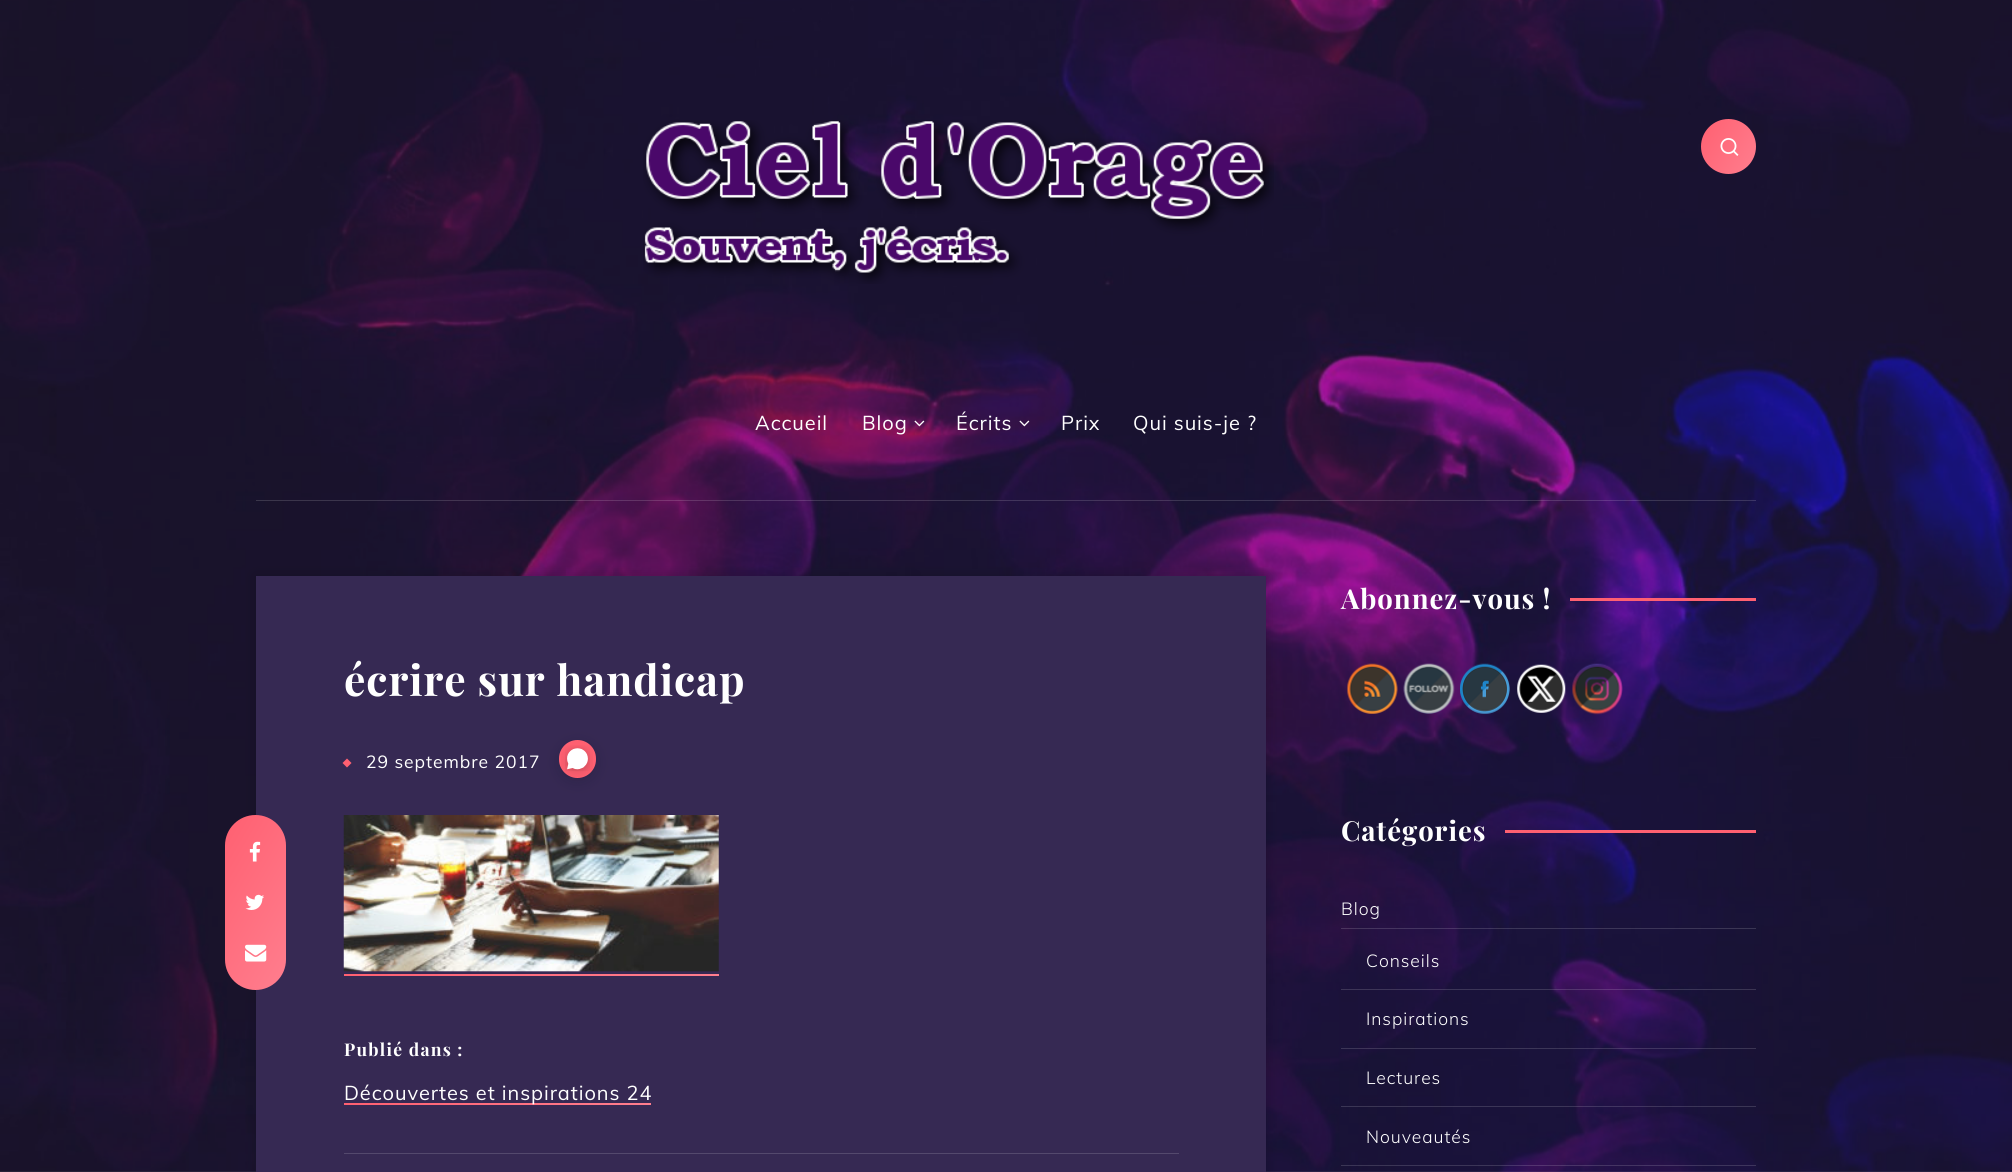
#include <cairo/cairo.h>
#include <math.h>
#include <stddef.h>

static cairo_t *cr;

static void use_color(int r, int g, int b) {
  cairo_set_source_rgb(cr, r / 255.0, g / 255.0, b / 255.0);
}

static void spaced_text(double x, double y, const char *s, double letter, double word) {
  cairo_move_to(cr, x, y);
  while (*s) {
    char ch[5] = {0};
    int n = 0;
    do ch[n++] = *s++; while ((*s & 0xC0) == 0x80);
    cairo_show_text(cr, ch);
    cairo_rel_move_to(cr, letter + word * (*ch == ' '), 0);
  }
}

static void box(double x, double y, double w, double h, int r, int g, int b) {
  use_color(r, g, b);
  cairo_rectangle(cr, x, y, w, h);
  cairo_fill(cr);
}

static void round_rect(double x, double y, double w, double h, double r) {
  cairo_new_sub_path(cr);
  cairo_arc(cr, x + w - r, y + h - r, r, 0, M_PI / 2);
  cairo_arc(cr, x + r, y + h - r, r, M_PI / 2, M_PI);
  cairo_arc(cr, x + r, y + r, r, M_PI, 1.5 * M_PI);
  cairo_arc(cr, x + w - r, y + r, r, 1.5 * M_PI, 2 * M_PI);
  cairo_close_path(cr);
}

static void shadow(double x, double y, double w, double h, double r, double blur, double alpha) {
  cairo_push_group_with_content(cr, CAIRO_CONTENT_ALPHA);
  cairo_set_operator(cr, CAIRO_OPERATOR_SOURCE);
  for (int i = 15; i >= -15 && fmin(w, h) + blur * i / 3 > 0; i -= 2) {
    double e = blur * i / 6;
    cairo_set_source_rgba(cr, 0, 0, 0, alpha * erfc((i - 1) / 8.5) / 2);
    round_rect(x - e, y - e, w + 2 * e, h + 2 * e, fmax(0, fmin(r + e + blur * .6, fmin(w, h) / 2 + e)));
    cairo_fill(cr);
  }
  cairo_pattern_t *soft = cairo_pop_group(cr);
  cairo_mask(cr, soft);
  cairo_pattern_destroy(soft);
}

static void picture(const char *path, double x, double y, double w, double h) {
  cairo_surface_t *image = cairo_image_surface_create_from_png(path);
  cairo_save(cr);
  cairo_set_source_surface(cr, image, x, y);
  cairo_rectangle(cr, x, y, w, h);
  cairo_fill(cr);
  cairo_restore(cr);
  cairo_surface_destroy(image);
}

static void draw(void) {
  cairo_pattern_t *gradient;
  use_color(255, 255, 255);
  cairo_paint(cr);
  picture("img_01.png", 0, 0, 2012, 1172);
  picture("img_02.png", 643, 120, 631, 164);
  gradient = cairo_pattern_create_linear(1696, 127, 1761, 165);
  cairo_pattern_add_color_stop_rgba(gradient, 0, 1, 0.376, 0.443, 1);
  cairo_pattern_add_color_stop_rgba(gradient, 1, 1, 0.494, 0.557, 1);
  cairo_set_source(cr, gradient);
  cairo_pattern_destroy(gradient);
  cairo_arc(cr, 1728.5, 146.5, 27.5, 0, 2 * M_PI);
  cairo_fill(cr);
  picture("img_03.png", 1720, 138, 19, 18);
  picture("img_04.png", 914, 420, 11, 7);
  picture("img_05.png", 1019, 420, 11, 7);
  cairo_set_source_rgba(cr, 1, 1, 1, 0.15);
  cairo_rectangle(cr, 256, 500, 1500, 1);
  cairo_fill(cr);
  use_color(0, 0, 0);
  shadow(255, 575, 1013, 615, 0, 6, 0.15);
  box(256, 576, 1010, 596, 54, 41, 83);
  use_color(255, 96, 113);
  cairo_new_path(cr);
  cairo_move_to(cr, 347, 758.5);
  cairo_line_to(cr, 351.5, 763);
  cairo_line_to(cr, 347, 767.5);
  cairo_line_to(cr, 342.5, 763);
  cairo_close_path(cr);
  cairo_fill(cr);
  use_color(7, 10, 25);
  shadow(560, 745, 35, 35, 17.5, 7.5, 0.2);
  use_color(255, 96, 113);
  round_rect(559, 740, 37, 38, 18.5);
  cairo_fill(cr);
  picture("img_06.png", 561, 745, 32, 32);
  gradient = cairo_pattern_create_linear(195, 867, 316, 938);
  cairo_pattern_add_color_stop_rgba(gradient, 0, 1, 0.376, 0.443, 1);
  cairo_pattern_add_color_stop_rgba(gradient, 1, 1, 0.494, 0.557, 1);
  cairo_set_source(cr, gradient);
  cairo_pattern_destroy(gradient);
  round_rect(225, 815, 61, 175, 30.5);
  cairo_fill(cr);
  picture("img_07.png", 249, 841, 12, 21);
  picture("img_08.png", 245, 894, 19, 16);
  picture("img_09.png", 245, 944, 22, 18);
  picture("img_10.png", 343, 815, 376, 157);
  gradient = cairo_pattern_create_linear(390, 893, 672, 1057);
  cairo_pattern_add_color_stop_rgba(gradient, 0, 1, 0.376, 0.443, 1);
  cairo_pattern_add_color_stop_rgba(gradient, 1, 1, 0.494, 0.557, 1);
  cairo_set_source(cr, gradient);
  cairo_pattern_destroy(gradient);
  cairo_rectangle(cr, 344, 974, 375, 2);
  cairo_fill(cr);
  gradient = cairo_pattern_create_linear(382, 1037, 613, 1171);
  cairo_pattern_add_color_stop_rgba(gradient, 0, 1, 0.376, 0.443, 1);
  cairo_pattern_add_color_stop_rgba(gradient, 1, 1, 0.494, 0.557, 1);
  cairo_set_source(cr, gradient);
  cairo_pattern_destroy(gradient);
  cairo_rectangle(cr, 344, 1103, 307, 2);
  cairo_fill(cr);
  box(344, 1153, 835, 1, 84, 73, 109);
  box(1570, 598, 186, 3, 255, 96, 113);
  picture("img_11.png", 1347, 663, 51, 51);
  picture("img_12.png", 1403, 663, 52, 51);
  picture("img_13.png", 1460, 663, 50, 51);
  picture("img_14.png", 1517, 664, 49, 49);
  picture("img_15.png", 1572, 663, 51, 52);
  box(1505, 830, 251, 3, 255, 96, 113);
  cairo_set_source_rgba(cr, 1, 1, 1, 0.15);
  cairo_rectangle(cr, 1341, 928, 415, 1);
  cairo_fill(cr);
  cairo_rectangle(cr, 1341, 989, 415, 1);
  cairo_fill(cr);
  cairo_rectangle(cr, 1341, 1048, 415, 1);
  cairo_fill(cr);
  cairo_rectangle(cr, 1341, 1106, 415, 1);
  cairo_fill(cr);
  cairo_rectangle(cr, 1341, 1165, 415, 1);
  cairo_fill(cr);
  cairo_select_font_face(cr, "Muli", CAIRO_FONT_SLANT_NORMAL, CAIRO_FONT_WEIGHT_NORMAL);
  cairo_set_font_size(cr, 20);
  use_color(255, 255, 255);
  spaced_text(755, 430, "Accueil", 0.95, 0);
  spaced_text(862, 430, "Blog", 0.95, 0);
  spaced_text(956, 430, "Écrits", 0.95, 0);
  spaced_text(1061, 430, "Prix", 0.95, 0);
  spaced_text(1133, 430, "Qui suis-je ?", 0.95, 0);
  cairo_select_font_face(cr, "Playfair Display", CAIRO_FONT_SLANT_NORMAL, CAIRO_FONT_WEIGHT_BOLD);
  cairo_set_font_size(cr, 42.5);
  spaced_text(344, 696, "écrire sur handicap", 0.95, 0);
  cairo_select_font_face(cr, "Muli", CAIRO_FONT_SLANT_NORMAL, CAIRO_FONT_WEIGHT_NORMAL);
  cairo_set_font_size(cr, 17.5);
  spaced_text(366, 768, "29 septembre 2017", 0.95, 0);
  cairo_select_font_face(cr, "Playfair Display", CAIRO_FONT_SLANT_NORMAL, CAIRO_FONT_WEIGHT_BOLD);
  spaced_text(344, 1056, "Publié dans :", 1.25, 0);
  cairo_select_font_face(cr, "Muli", CAIRO_FONT_SLANT_NORMAL, CAIRO_FONT_WEIGHT_NORMAL);
  cairo_set_font_size(cr, 20);
  spaced_text(344, 1100, "Découvertes et inspirations 24", 0.95, 0);
  cairo_select_font_face(cr, "Playfair Display", CAIRO_FONT_SLANT_NORMAL, CAIRO_FONT_WEIGHT_BOLD);
  cairo_set_font_size(cr, 27.5);
  spaced_text(1341, 609, "Abonnez-vous !", 0.95, 0);
  spaced_text(1341, 841, "Catégories", 0.95, 0);
  cairo_select_font_face(cr, "Muli Light", CAIRO_FONT_SLANT_NORMAL, CAIRO_FONT_WEIGHT_NORMAL);
  cairo_set_font_size(cr, 17.5);
  spaced_text(1341, 915, "Blog", 0.95, 0);
  spaced_text(1366, 967, "Conseils", 0.95, 0);
  spaced_text(1366, 1025, "Inspirations", 0.95, 0);
  spaced_text(1366, 1084, "Lectures", 0.95, 0);
  spaced_text(1366, 1143, "Nouveautés", 0.95, 0);
}

int main(void) {
  cairo_surface_t *surface = cairo_image_surface_create(CAIRO_FORMAT_RGB24, 2012, 1172);
  cr = cairo_create(surface);
  cairo_font_options_t *options = cairo_font_options_create();
  cairo_font_options_set_hint_metrics(options, CAIRO_HINT_METRICS_OFF);
  cairo_font_options_set_hint_style(options, CAIRO_HINT_STYLE_NONE);
  cairo_set_font_options(cr, options);
  cairo_set_miter_limit(cr, 4);
  draw();
  cairo_surface_write_to_png(surface, "out.png");
  cairo_font_options_destroy(options);
  cairo_destroy(cr);
  cairo_surface_destroy(surface);
  return 0;
}
